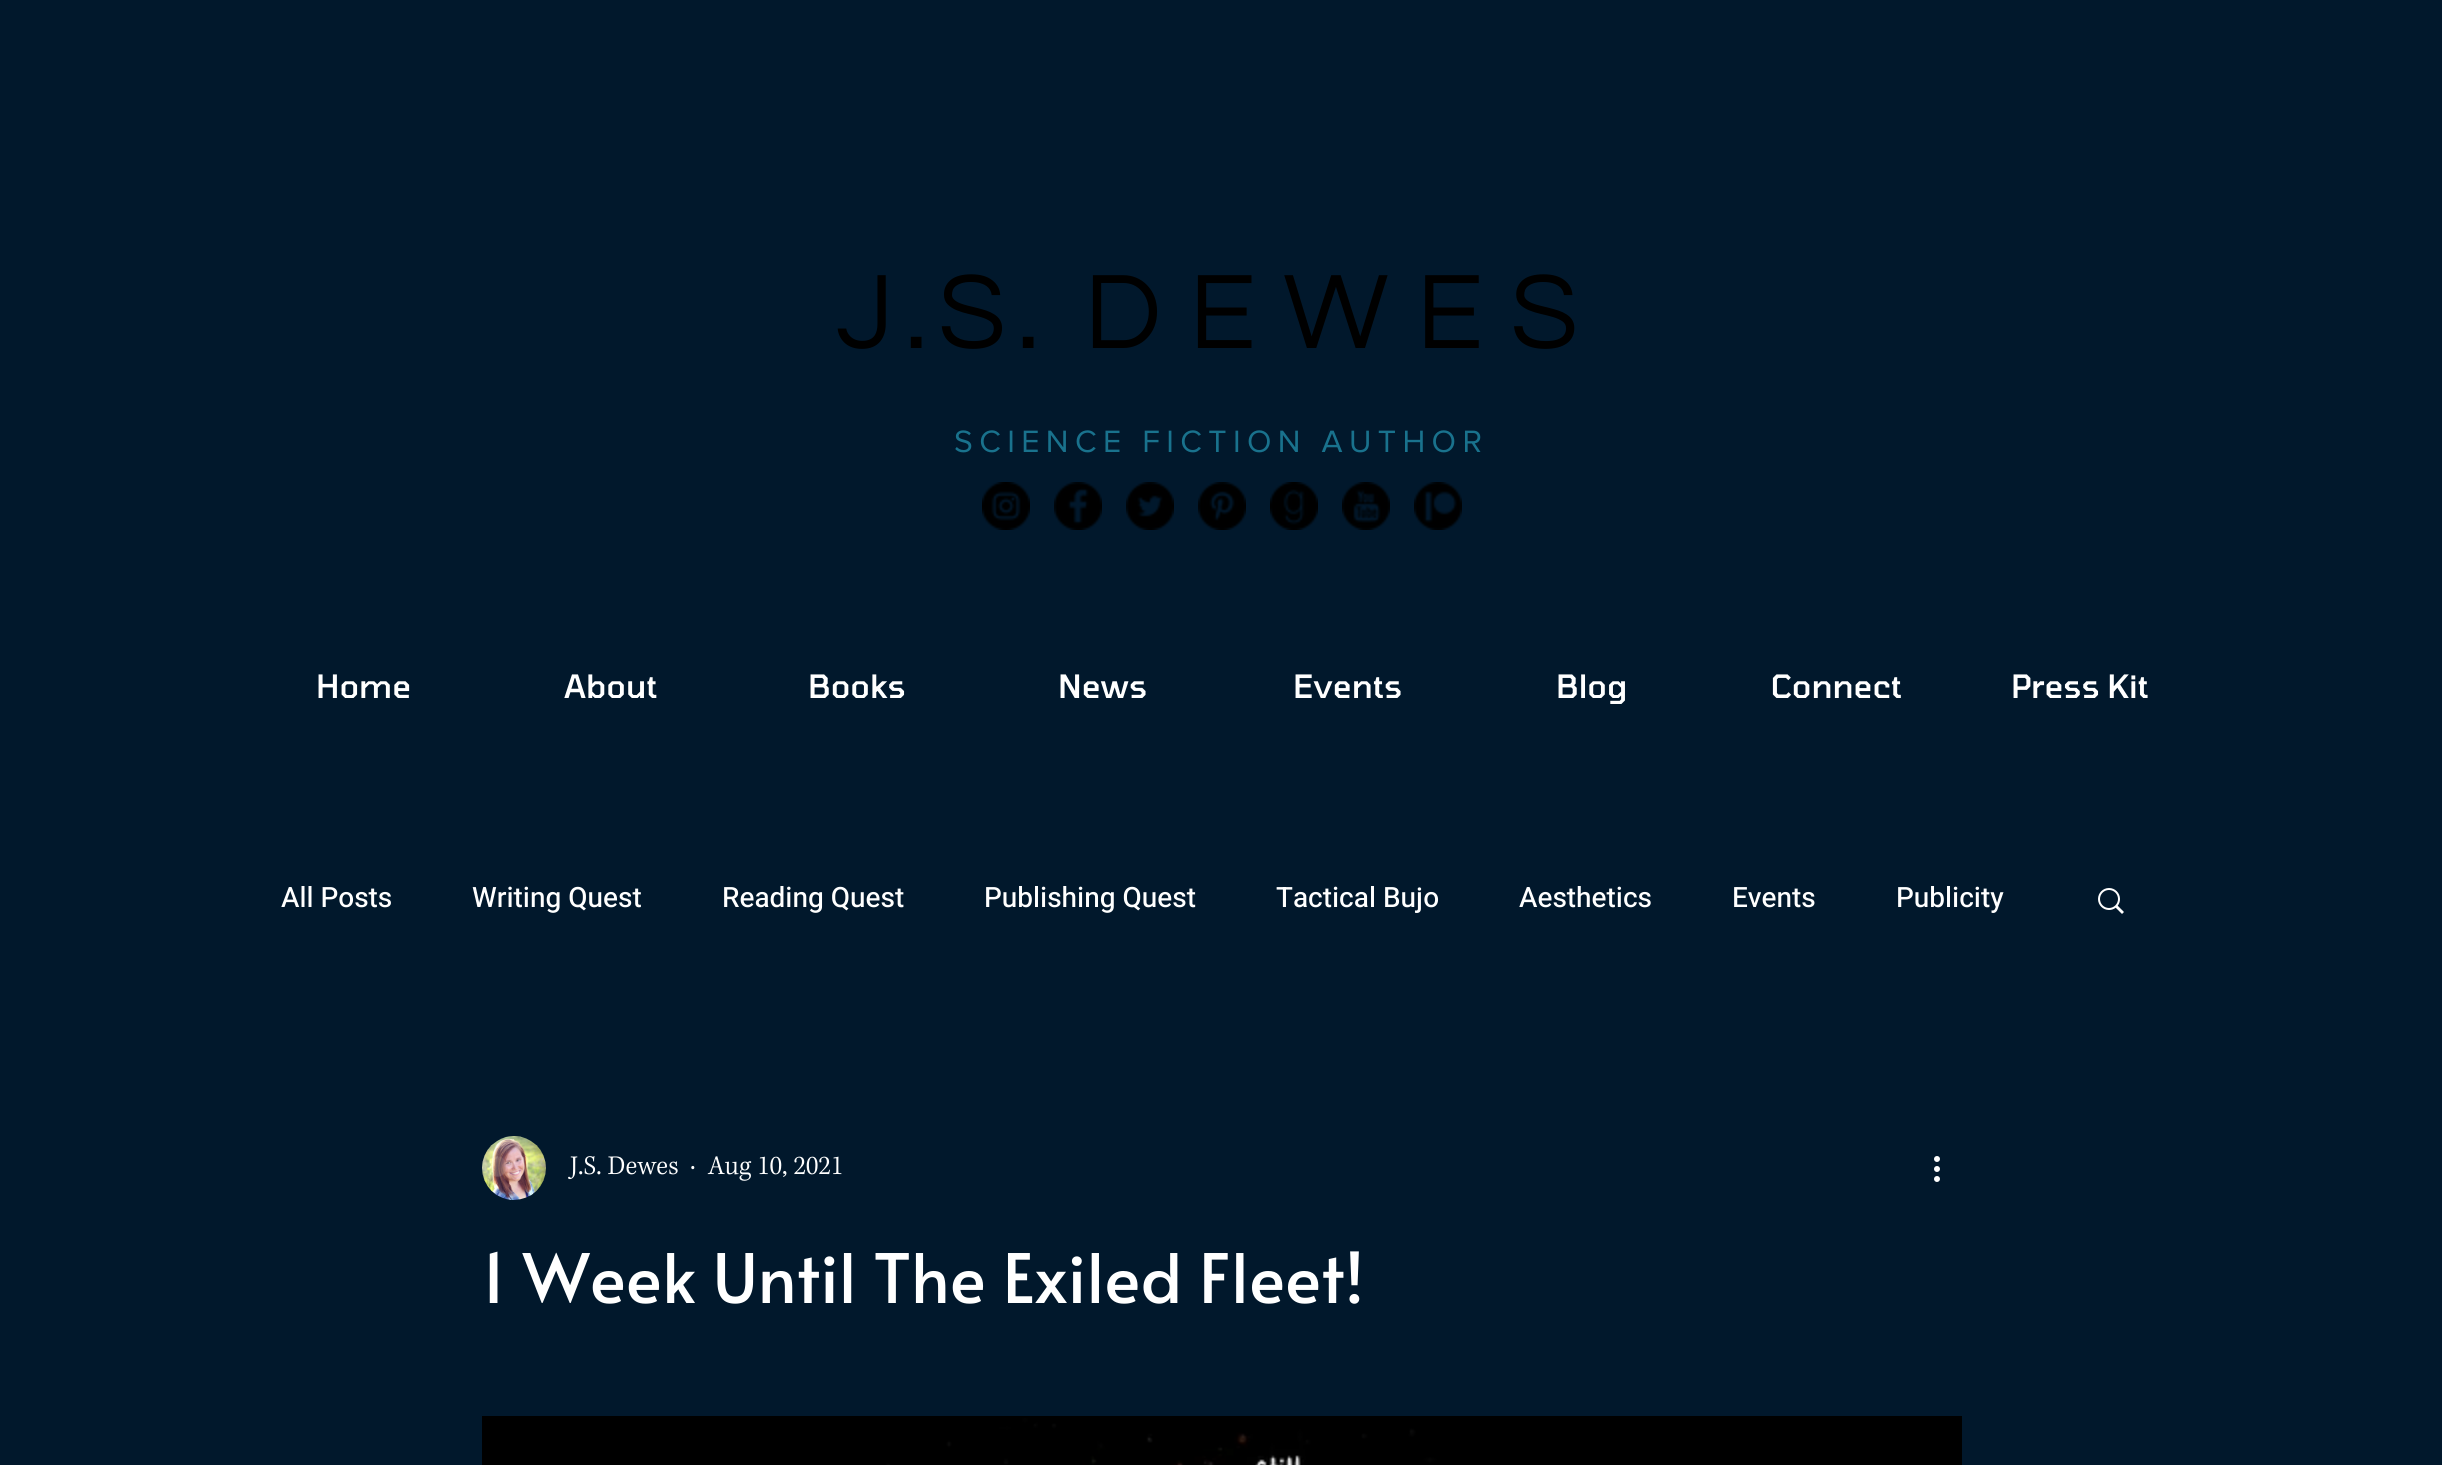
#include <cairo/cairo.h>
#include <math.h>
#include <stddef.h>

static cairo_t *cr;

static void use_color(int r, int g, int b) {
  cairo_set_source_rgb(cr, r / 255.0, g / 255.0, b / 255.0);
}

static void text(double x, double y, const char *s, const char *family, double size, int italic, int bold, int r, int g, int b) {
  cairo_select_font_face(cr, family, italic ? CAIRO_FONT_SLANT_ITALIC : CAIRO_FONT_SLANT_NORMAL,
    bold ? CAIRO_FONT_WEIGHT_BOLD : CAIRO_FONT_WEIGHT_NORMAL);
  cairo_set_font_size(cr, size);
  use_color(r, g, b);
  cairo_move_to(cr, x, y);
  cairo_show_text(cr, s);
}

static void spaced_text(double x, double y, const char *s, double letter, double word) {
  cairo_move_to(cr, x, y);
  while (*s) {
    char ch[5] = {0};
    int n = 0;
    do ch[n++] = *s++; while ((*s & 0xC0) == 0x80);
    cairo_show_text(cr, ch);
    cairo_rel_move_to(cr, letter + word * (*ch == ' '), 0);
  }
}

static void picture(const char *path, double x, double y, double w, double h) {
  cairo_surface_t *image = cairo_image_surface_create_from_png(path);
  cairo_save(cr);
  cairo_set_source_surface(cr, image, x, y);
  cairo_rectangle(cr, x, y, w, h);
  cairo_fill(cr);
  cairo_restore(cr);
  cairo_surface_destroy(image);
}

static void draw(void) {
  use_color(1, 24, 44);
  cairo_paint(cr);
  picture("img_01.png", 982, 482, 48, 48);
  picture("img_02.png", 1054, 482, 48, 48);
  picture("img_03.png", 1126, 482, 48, 48);
  picture("img_04.png", 1198, 482, 48, 48);
  picture("img_05.png", 1270, 482, 48, 48);
  picture("img_06.png", 1342, 482, 48, 48);
  picture("img_07.png", 1414, 482, 48, 48);
  picture("img_08.png", 2098, 888, 26, 26);
  picture("img_09.png", 482, 1136, 64, 64);
  picture("img_10.png", 568, 1156, 110, 24);
  picture("img_11.png", 691, 1165, 4, 5);
  picture("img_12.png", 707, 1156, 135, 25);
  picture("img_13.png", 1934, 1156, 6, 26);
  picture("img_14.png", 482, 1416, 1480, 49);
  cairo_select_font_face(cr, "Questrial", CAIRO_FONT_SLANT_NORMAL, CAIRO_FONT_WEIGHT_NORMAL);
  cairo_set_font_size(cr, 110);
  use_color(0, 0, 0);
  spaced_text(836, 348, "J.S.", 11, 0);
  spaced_text(1084, 348, "DEWES", 27.5, 0);
  cairo_select_font_face(cr, "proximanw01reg", CAIRO_FONT_SLANT_NORMAL, CAIRO_FONT_WEIGHT_NORMAL);
  cairo_set_font_size(cr, 32);
  use_color(25, 114, 141);
  spaced_text(954, 452, "SCIENCE FICTION AUTHOR", 6.4, 0);
  text(316, 698, "Home", "Tomorrow Medium", 32, 0, 0, 255, 255, 255);
  text(564, 698, "About", "Tomorrow Medium", 32, 0, 0, 255, 255, 255);
  text(808, 698, "Books", "Tomorrow Medium", 32, 0, 0, 255, 255, 255);
  text(1058, 698, "News", "Tomorrow Medium", 32, 0, 0, 255, 255, 255);
  text(1293, 698, "Events", "Tomorrow Medium", 32, 0, 0, 255, 255, 255);
  text(1556, 698, "Blog", "Tomorrow Medium", 32, 0, 0, 255, 255, 255);
  text(1771, 698, "Connect", "Tomorrow Medium", 32, 0, 0, 255, 255, 255);
  text(2011, 698, "Press Kit", "Tomorrow Medium", 32, 0, 0, 255, 255, 255);
  text(281, 907, "All Posts", "Heebo Medium", 28, 0, 0, 255, 255, 255);
  text(472, 907, "Writing Quest", "Heebo Medium", 28, 0, 0, 255, 255, 255);
  text(722, 907, "Reading Quest", "Heebo Medium", 28, 0, 0, 255, 255, 255);
  text(984, 907, "Publishing Quest", "Heebo Medium", 28, 0, 0, 255, 255, 255);
  text(1276, 907, "Tactical Bujo", "Heebo Medium", 28, 0, 0, 255, 255, 255);
  text(1519, 907, "Aesthetics", "Heebo Medium", 28, 0, 0, 255, 255, 255);
  text(1732, 907, "Events", "Heebo Medium", 28, 0, 0, 255, 255, 255);
  text(1896, 907, "Publicity", "Heebo Medium", 28, 0, 0, 255, 255, 255);
  text(481, 1303, "1 Week Until The Exiled Fleet!", "Alata", 68, 0, 0, 255, 255, 255);
}

int main(void) {
  cairo_surface_t *surface = cairo_image_surface_create(CAIRO_FORMAT_RGB24, 2442, 1465);
  cr = cairo_create(surface);
  cairo_font_options_t *options = cairo_font_options_create();
  cairo_font_options_set_hint_metrics(options, CAIRO_HINT_METRICS_OFF);
  cairo_font_options_set_hint_style(options, CAIRO_HINT_STYLE_NONE);
  cairo_set_font_options(cr, options);
  cairo_set_miter_limit(cr, 4);
  draw();
  cairo_surface_write_to_png(surface, "out.png");
  cairo_font_options_destroy(options);
  cairo_destroy(cr);
  cairo_surface_destroy(surface);
  return 0;
}
